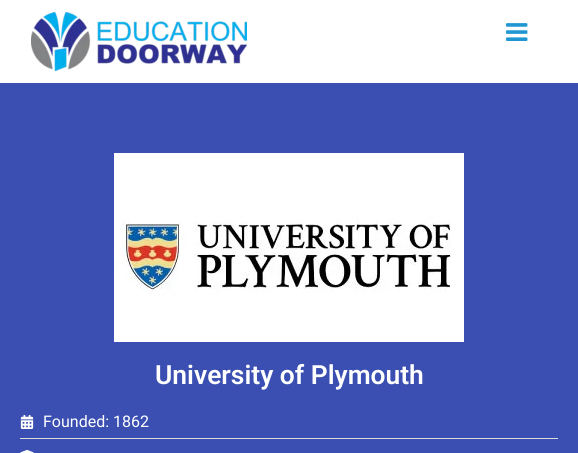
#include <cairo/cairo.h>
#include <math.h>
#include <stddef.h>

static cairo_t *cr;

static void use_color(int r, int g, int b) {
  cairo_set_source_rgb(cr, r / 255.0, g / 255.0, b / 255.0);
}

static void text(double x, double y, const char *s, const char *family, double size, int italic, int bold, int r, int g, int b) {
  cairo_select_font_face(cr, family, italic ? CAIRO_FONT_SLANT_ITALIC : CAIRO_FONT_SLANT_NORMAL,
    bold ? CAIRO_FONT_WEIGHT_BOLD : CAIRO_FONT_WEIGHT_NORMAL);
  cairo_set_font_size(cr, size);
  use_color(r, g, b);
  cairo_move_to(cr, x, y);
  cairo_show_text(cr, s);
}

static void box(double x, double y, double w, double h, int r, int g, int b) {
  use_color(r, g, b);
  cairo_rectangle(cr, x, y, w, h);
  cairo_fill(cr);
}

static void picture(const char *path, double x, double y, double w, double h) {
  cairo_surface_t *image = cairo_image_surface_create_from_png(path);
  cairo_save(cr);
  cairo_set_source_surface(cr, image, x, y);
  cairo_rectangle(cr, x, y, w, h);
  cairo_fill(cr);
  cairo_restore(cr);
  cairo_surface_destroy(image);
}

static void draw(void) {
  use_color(58, 79, 177);
  cairo_paint(cr);
  box(0, 0, 578, 83, 255, 255, 255);
  picture("img_01.png", 31, 12, 216, 59);
  picture("img_02.png", 506, 23, 22, 18);
  picture("img_03.png", 114, 153, 350, 189);
  picture("img_04.png", 20, 415, 14, 14);
  box(20, 438, 538, 1, 221, 221, 221);
  picture("img_05.png", 20, 449, 14, 4);
  text(155, 384, "University of Plymouth", "Roboto SemiBold", 26.4, 0, 0, 255, 255, 255);
  text(43, 427, "Founded: 1862", "Roboto", 16, 0, 0, 255, 255, 255);
}

int main(void) {
  cairo_surface_t *surface = cairo_image_surface_create(CAIRO_FORMAT_RGB24, 578, 453);
  cr = cairo_create(surface);
  cairo_font_options_t *options = cairo_font_options_create();
  cairo_font_options_set_hint_metrics(options, CAIRO_HINT_METRICS_OFF);
  cairo_font_options_set_hint_style(options, CAIRO_HINT_STYLE_NONE);
  cairo_set_font_options(cr, options);
  cairo_set_miter_limit(cr, 4);
  draw();
  cairo_surface_write_to_png(surface, "out.png");
  cairo_font_options_destroy(options);
  cairo_destroy(cr);
  cairo_surface_destroy(surface);
  return 0;
}
